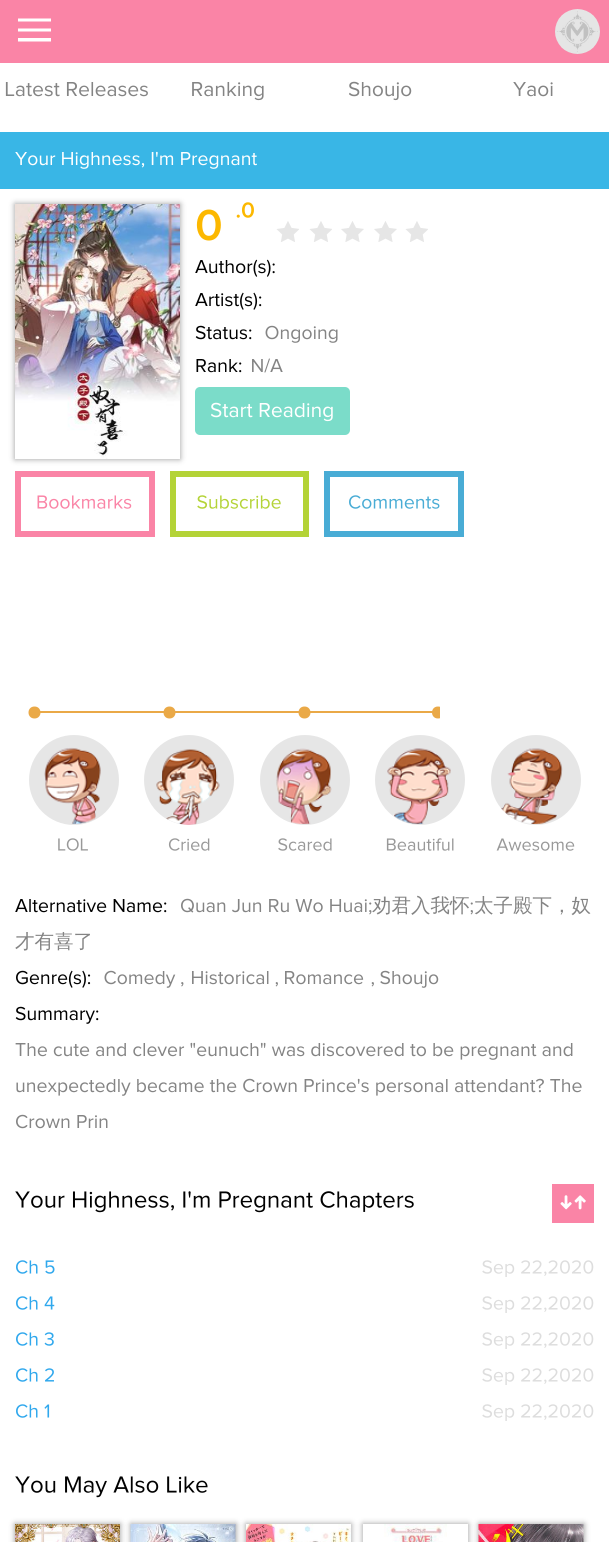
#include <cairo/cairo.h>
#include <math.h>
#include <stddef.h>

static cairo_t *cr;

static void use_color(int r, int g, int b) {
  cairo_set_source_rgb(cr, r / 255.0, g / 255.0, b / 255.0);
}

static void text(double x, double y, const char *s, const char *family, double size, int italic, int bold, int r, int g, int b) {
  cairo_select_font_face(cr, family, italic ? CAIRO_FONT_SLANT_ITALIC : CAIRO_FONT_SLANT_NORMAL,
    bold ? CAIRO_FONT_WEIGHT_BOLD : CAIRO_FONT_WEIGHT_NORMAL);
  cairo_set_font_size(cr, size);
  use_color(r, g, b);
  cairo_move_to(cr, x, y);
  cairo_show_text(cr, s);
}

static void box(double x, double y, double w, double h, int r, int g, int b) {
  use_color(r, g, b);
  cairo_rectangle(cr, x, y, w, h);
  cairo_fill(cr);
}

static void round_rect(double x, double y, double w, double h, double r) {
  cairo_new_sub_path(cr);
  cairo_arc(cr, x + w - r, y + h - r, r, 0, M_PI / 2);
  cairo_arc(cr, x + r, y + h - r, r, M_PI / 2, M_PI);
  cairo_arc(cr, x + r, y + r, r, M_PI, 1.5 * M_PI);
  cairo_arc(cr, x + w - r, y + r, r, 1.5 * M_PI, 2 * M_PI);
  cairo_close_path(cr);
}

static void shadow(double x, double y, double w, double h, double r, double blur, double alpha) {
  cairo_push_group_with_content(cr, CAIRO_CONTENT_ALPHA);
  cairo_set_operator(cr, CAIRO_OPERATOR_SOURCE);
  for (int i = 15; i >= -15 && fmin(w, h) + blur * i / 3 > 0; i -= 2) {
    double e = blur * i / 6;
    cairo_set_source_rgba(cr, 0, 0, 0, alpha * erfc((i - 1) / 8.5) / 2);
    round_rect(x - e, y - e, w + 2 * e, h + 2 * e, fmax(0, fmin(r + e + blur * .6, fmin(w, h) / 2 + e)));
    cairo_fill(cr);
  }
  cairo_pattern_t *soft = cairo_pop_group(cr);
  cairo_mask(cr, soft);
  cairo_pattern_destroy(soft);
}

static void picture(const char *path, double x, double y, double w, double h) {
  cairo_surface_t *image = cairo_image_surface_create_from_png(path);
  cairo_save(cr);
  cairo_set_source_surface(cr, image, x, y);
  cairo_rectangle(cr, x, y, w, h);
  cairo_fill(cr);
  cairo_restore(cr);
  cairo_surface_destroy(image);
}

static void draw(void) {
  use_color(255, 255, 255);
  cairo_paint(cr);
  box(0, 0, 609, 63, 250, 132, 166);
  use_color(255, 255, 255);
  cairo_new_path(cr);
  cairo_move_to(cr, 18, 18.5);
  cairo_line_to(cr, 18, 21.5);
  cairo_line_to(cr, 51, 21.5);
  cairo_line_to(cr, 51, 18.5);
  cairo_close_path(cr);
  cairo_move_to(cr, 18, 31.5);
  cairo_line_to(cr, 51, 31.5);
  cairo_line_to(cr, 51, 28.5);
  cairo_line_to(cr, 18, 28.5);
  cairo_close_path(cr);
  cairo_move_to(cr, 18, 41.5);
  cairo_line_to(cr, 51, 41.5);
  cairo_line_to(cr, 51, 38);
  cairo_line_to(cr, 18, 38);
  cairo_close_path(cr);
  cairo_fill(cr);
  picture("img_01.png", 555, 9, 45, 45);
  picture("img_02.png", 5, 82, 143, 15);
  picture("img_03.png", 192, 82, 72, 19);
  picture("img_04.png", 349, 81, 63, 20);
  picture("img_05.png", 513, 82, 40, 15);
  box(0, 132, 609, 57, 57, 182, 230);
  picture("img_06.png", 15, 151, 242, 18);
  use_color(153, 153, 153);
  shadow(15, 204, 165, 255, 0, 3, 1);
  picture("img_07.png", 15, 204, 165, 255);
  picture("img_08.png", 196, 209, 25, 32);
  picture("img_09.png", 236, 202, 18, 16);
  picture("img_10.png", 276, 221, 23, 21);
  picture("img_10.png", 309, 221, 23, 21);
  picture("img_11.png", 341, 221, 23, 21);
  picture("img_11.png", 374, 221, 23, 21);
  picture("img_10.png", 405, 221, 23, 21);
  picture("img_12.png", 195, 259, 80, 18);
  picture("img_13.png", 195, 292, 67, 18);
  picture("img_14.png", 195, 325, 57, 15);
  picture("img_15.png", 265, 325, 73, 18);
  picture("img_16.png", 196, 359, 46, 14);
  picture("img_17.png", 252, 358, 31, 15);
  use_color(123, 220, 201);
  round_rect(195, 387, 155, 48, 5);
  cairo_fill(cr);
  picture("img_18.png", 211, 402, 122, 20);
  cairo_rectangle(cr, 18, 474, 134, 60);
  use_color(250, 132, 166);
  cairo_set_line_width(cr, 6);
  cairo_stroke(cr);
  picture("img_19.png", 37, 495, 95, 14);
  cairo_rectangle(cr, 173, 474, 133, 60);
  use_color(180, 211, 55);
  cairo_stroke(cr);
  picture("img_20.png", 197, 495, 84, 14);
  cairo_rectangle(cr, 327, 474, 134, 60);
  use_color(73, 172, 213);
  cairo_stroke(cr);
  picture("img_21.png", 349, 495, 91, 14);
  picture("img_22.png", 28, 706, 412, 13);
  use_color(230, 230, 230);
  cairo_arc(cr, 74, 780, 45, 0, 2 * M_PI);
  cairo_fill(cr);
  picture("img_23.png", 44, 747, 57, 77);
  picture("img_24.png", 58, 838, 30, 13);
  cairo_arc(cr, 189, 780, 45, 0, 2 * M_PI);
  cairo_fill(cr);
  picture("img_25.png", 156, 749, 64, 76);
  picture("img_26.png", 168, 838, 42, 13);
  cairo_arc(cr, 305, 780, 45, 0, 2 * M_PI);
  cairo_fill(cr);
  picture("img_27.png", 276, 748, 56, 76);
  picture("img_28.png", 278, 838, 54, 13);
  cairo_arc(cr, 420, 780, 45, 0, 2 * M_PI);
  cairo_fill(cr);
  picture("img_29.png", 387, 748, 64, 76);
  picture("img_30.png", 386, 838, 68, 13);
  cairo_arc(cr, 536, 780, 45, 0, 2 * M_PI);
  cairo_fill(cr);
  picture("img_31.png", 501, 748, 62, 76);
  picture("img_32.png", 496, 838, 79, 13);
  picture("img_33.png", 15, 899, 152, 14);
  picture("img_34.png", 181, 898, 191, 17);
  picture("img_35.png", 470, 902, 3, 13);
  picture("img_36.png", 16, 970, 75, 18);
  picture("img_37.png", 104, 970, 72, 18);
  picture("img_38.png", 181, 982, 3, 5);
  picture("img_39.png", 192, 971, 77, 14);
  picture("img_40.png", 275, 982, 3, 5);
  picture("img_41.png", 285, 971, 79, 14);
  picture("img_40.png", 371, 982, 3, 5);
  picture("img_42.png", 380, 970, 59, 18);
  picture("img_43.png", 15, 1006, 84, 18);
  picture("img_44.png", 15, 1042, 558, 18);
  picture("img_45.png", 16, 1078, 566, 18);
  picture("img_46.png", 16, 1114, 92, 15);
  picture("img_47.png", 15, 1191, 399, 22);
  box(552, 1184, 42, 39, 250, 132, 166);
  picture("img_48.png", 560, 1195, 26, 15);
  picture("img_49.png", 16, 1260, 39, 14);
  picture("img_50.png", 482, 1260, 112, 17);
  picture("img_51.png", 16, 1296, 39, 14);
  picture("img_50.png", 482, 1296, 112, 17);
  picture("img_52.png", 16, 1332, 38, 14);
  picture("img_50.png", 482, 1332, 112, 17);
  picture("img_53.png", 16, 1368, 38, 14);
  picture("img_50.png", 482, 1368, 112, 17);
  picture("img_54.png", 16, 1404, 34, 14);
  picture("img_50.png", 482, 1404, 112, 17);
  picture("img_55.png", 15, 1476, 193, 22);
  use_color(153, 153, 153);
  shadow(15, 1524, 105, 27, 0, 3, 1);
  picture("img_56.png", 15, 1524, 105, 18);
  shadow(131, 1524, 105, 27, 0, 3, 1);
  picture("img_57.png", 130, 1524, 106, 18);
  shadow(246, 1524, 105, 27, 0, 3, 1);
  picture("img_58.png", 246, 1524, 105, 18);
  cairo_save(cr);
  cairo_set_fill_rule(cr, CAIRO_FILL_RULE_EVEN_ODD);
  cairo_new_path(cr);
  cairo_move_to(cr, 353, 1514);
  cairo_line_to(cr, 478, 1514);
  cairo_line_to(cr, 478, 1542);
  cairo_line_to(cr, 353, 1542);
  cairo_close_path(cr);
  cairo_move_to(cr, 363, 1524);
  cairo_line_to(cr, 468, 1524);
  cairo_line_to(cr, 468, 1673);
  cairo_line_to(cr, 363, 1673);
  cairo_close_path(cr);
  cairo_clip(cr);
  shadow(363, 1524, 105, 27, 0, 3, 1);
  cairo_restore(cr);
  picture("img_59.png", 384, 1524, 63, 18);
  shadow(479, 1524, 105, 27, 0, 3, 1);
  picture("img_60.png", 478, 1524, 106, 18);
  text(372, 912, "劝君入我怀", "WenQuanYi Zen Hei Medium", 19.5, 0, 0, 132, 132, 132);
  text(474, 912, "太子殿下，奴", "WenQuanYi Zen Hei Medium", 19.5, 0, 0, 132, 132, 132);
  text(15, 948, "才有喜了", "WenQuanYi Zen Hei Medium", 19.5, 0, 0, 132, 132, 132);
}

int main(void) {
  cairo_surface_t *surface = cairo_image_surface_create(CAIRO_FORMAT_RGB24, 609, 1542);
  cr = cairo_create(surface);
  cairo_font_options_t *options = cairo_font_options_create();
  cairo_font_options_set_hint_metrics(options, CAIRO_HINT_METRICS_OFF);
  cairo_font_options_set_hint_style(options, CAIRO_HINT_STYLE_NONE);
  cairo_set_font_options(cr, options);
  cairo_set_miter_limit(cr, 4);
  draw();
  cairo_surface_write_to_png(surface, "out.png");
  cairo_font_options_destroy(options);
  cairo_destroy(cr);
  cairo_surface_destroy(surface);
  return 0;
}
